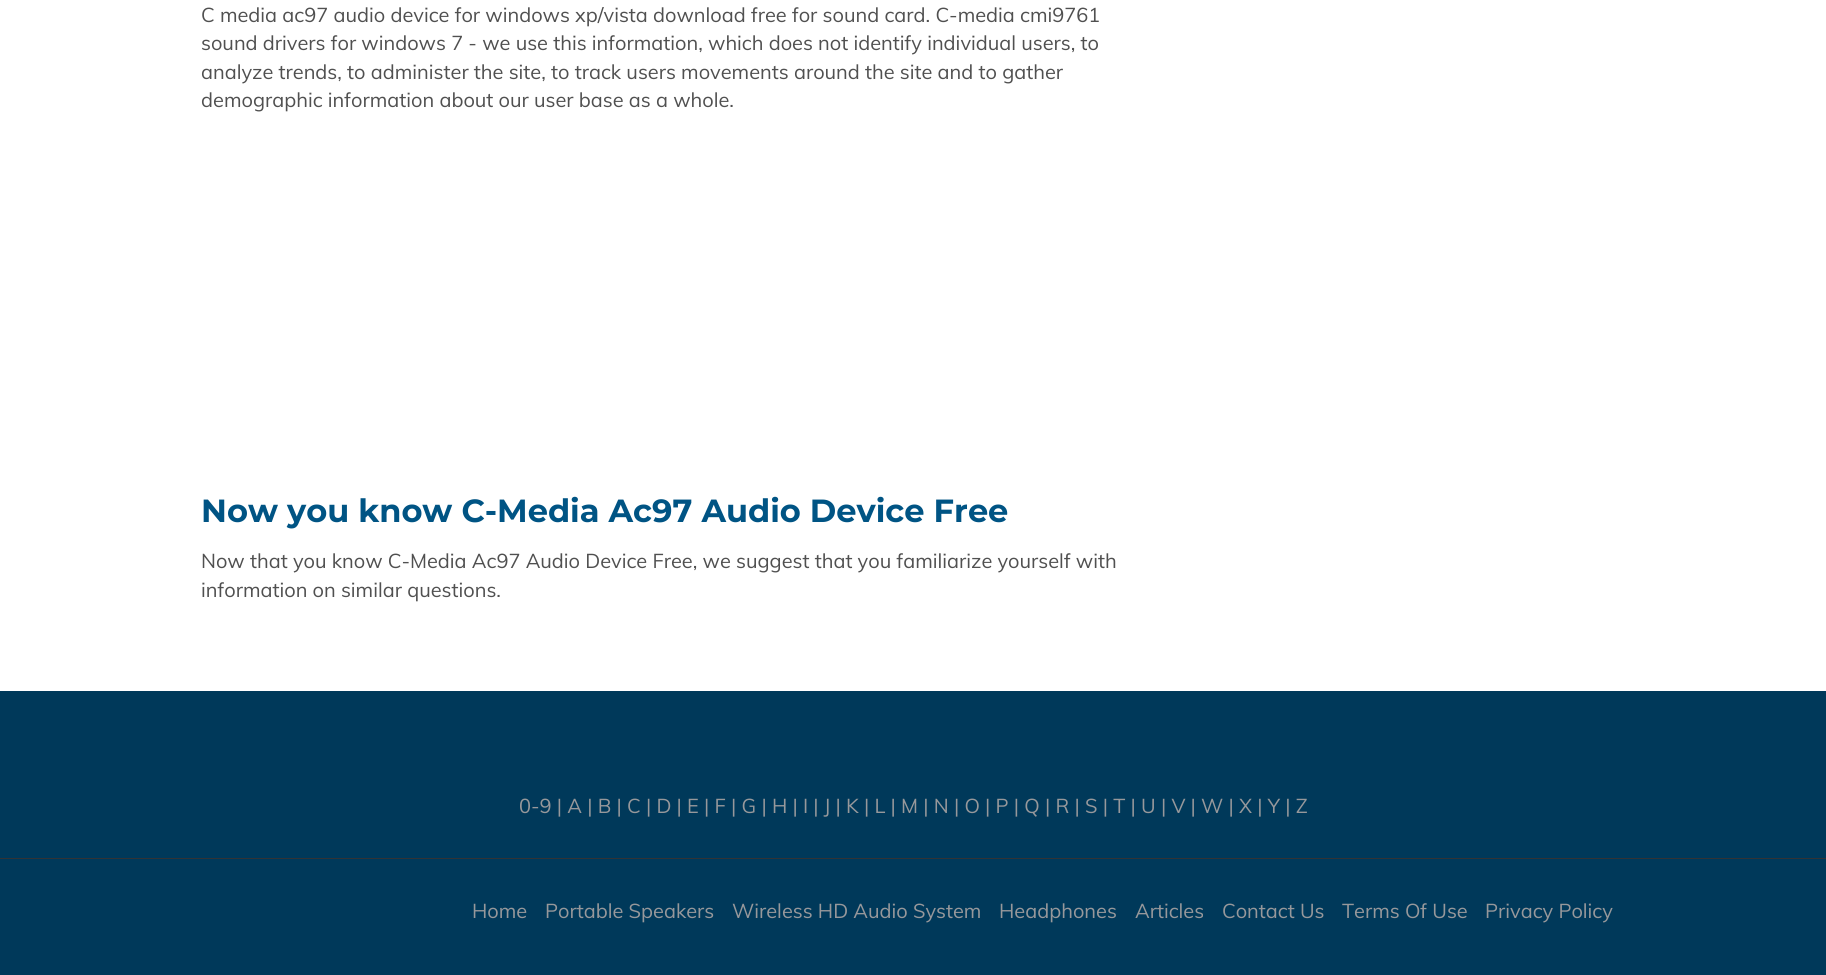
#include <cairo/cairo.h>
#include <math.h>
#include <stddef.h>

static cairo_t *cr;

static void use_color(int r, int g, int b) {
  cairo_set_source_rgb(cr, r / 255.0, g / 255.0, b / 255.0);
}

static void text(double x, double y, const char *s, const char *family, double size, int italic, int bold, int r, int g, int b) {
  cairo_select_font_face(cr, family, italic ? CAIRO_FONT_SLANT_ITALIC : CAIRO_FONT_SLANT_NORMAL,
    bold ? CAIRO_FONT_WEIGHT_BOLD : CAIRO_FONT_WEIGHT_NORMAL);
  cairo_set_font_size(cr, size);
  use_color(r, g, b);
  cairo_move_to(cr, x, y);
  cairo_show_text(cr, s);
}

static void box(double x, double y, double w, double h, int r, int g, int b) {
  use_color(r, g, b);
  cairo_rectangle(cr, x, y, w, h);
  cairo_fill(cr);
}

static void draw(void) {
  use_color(255, 255, 255);
  cairo_paint(cr);
  box(0, 691, 1826, 284, 0, 57, 90);
  box(0, 858, 1826, 1, 50, 51, 53);
  text(201, 22, "C media ac97 audio device for windows xp/vista download free for sound card. C-media cmi9761", "Muli", 20, 0, 0, 80, 80, 80);
  text(201, 50, "sound drivers for windows 7 - we use this information, which does not identify individual users, to", "Muli", 20, 0, 0, 80, 80, 80);
  text(201, 79, "analyze trends, to administer the site, to track users movements around the site and to gather", "Muli", 20, 0, 0, 80, 80, 80);
  text(201, 107, "demographic information about our user base as a whole.", "Muli", 20, 0, 0, 80, 80, 80);
  text(201, 522, "Now you know C-Media Ac97 Audio Device Free", "Montserrat", 32.05, 0, 1, 0, 84, 132);
  text(201, 568, "Now that you know C-Media Ac97 Audio Device Free, we suggest that you familiarize yourself with", "Muli", 20, 0, 0, 80, 80, 80);
  text(201, 597, "information on similar questions.", "Muli", 20, 0, 0, 80, 80, 80);
  text(519, 813, "0-9 | A | B | C | D | E | F | G | H | I | J | K | L | M | N | O | P | Q | R | S | T | U | V | W | X | Y | Z", "Muli", 20, 0, 0, 151, 152, 155);
  text(472, 918, "Home", "Muli", 20, 0, 0, 151, 152, 155);
  text(545, 918, "Portable Speakers", "Muli", 20, 0, 0, 151, 152, 155);
  text(732, 918, "Wireless HD Audio System", "Muli", 20, 0, 0, 151, 152, 155);
  text(999, 918, "Headphones", "Muli", 20, 0, 0, 151, 152, 155);
  text(1135, 918, "Articles", "Muli", 20, 0, 0, 151, 152, 155);
  text(1222, 918, "Contact Us", "Muli", 20, 0, 0, 151, 152, 155);
  text(1342, 918, "Terms Of Use", "Muli", 20, 0, 0, 151, 152, 155);
  text(1485, 918, "Privacy Policy", "Muli", 20, 0, 0, 151, 152, 155);
}

int main(void) {
  cairo_surface_t *surface = cairo_image_surface_create(CAIRO_FORMAT_RGB24, 1826, 975);
  cr = cairo_create(surface);
  cairo_font_options_t *options = cairo_font_options_create();
  cairo_font_options_set_hint_metrics(options, CAIRO_HINT_METRICS_OFF);
  cairo_font_options_set_hint_style(options, CAIRO_HINT_STYLE_NONE);
  cairo_set_font_options(cr, options);
  cairo_set_miter_limit(cr, 4);
  draw();
  cairo_surface_write_to_png(surface, "out.png");
  cairo_font_options_destroy(options);
  cairo_destroy(cr);
  cairo_surface_destroy(surface);
  return 0;
}
